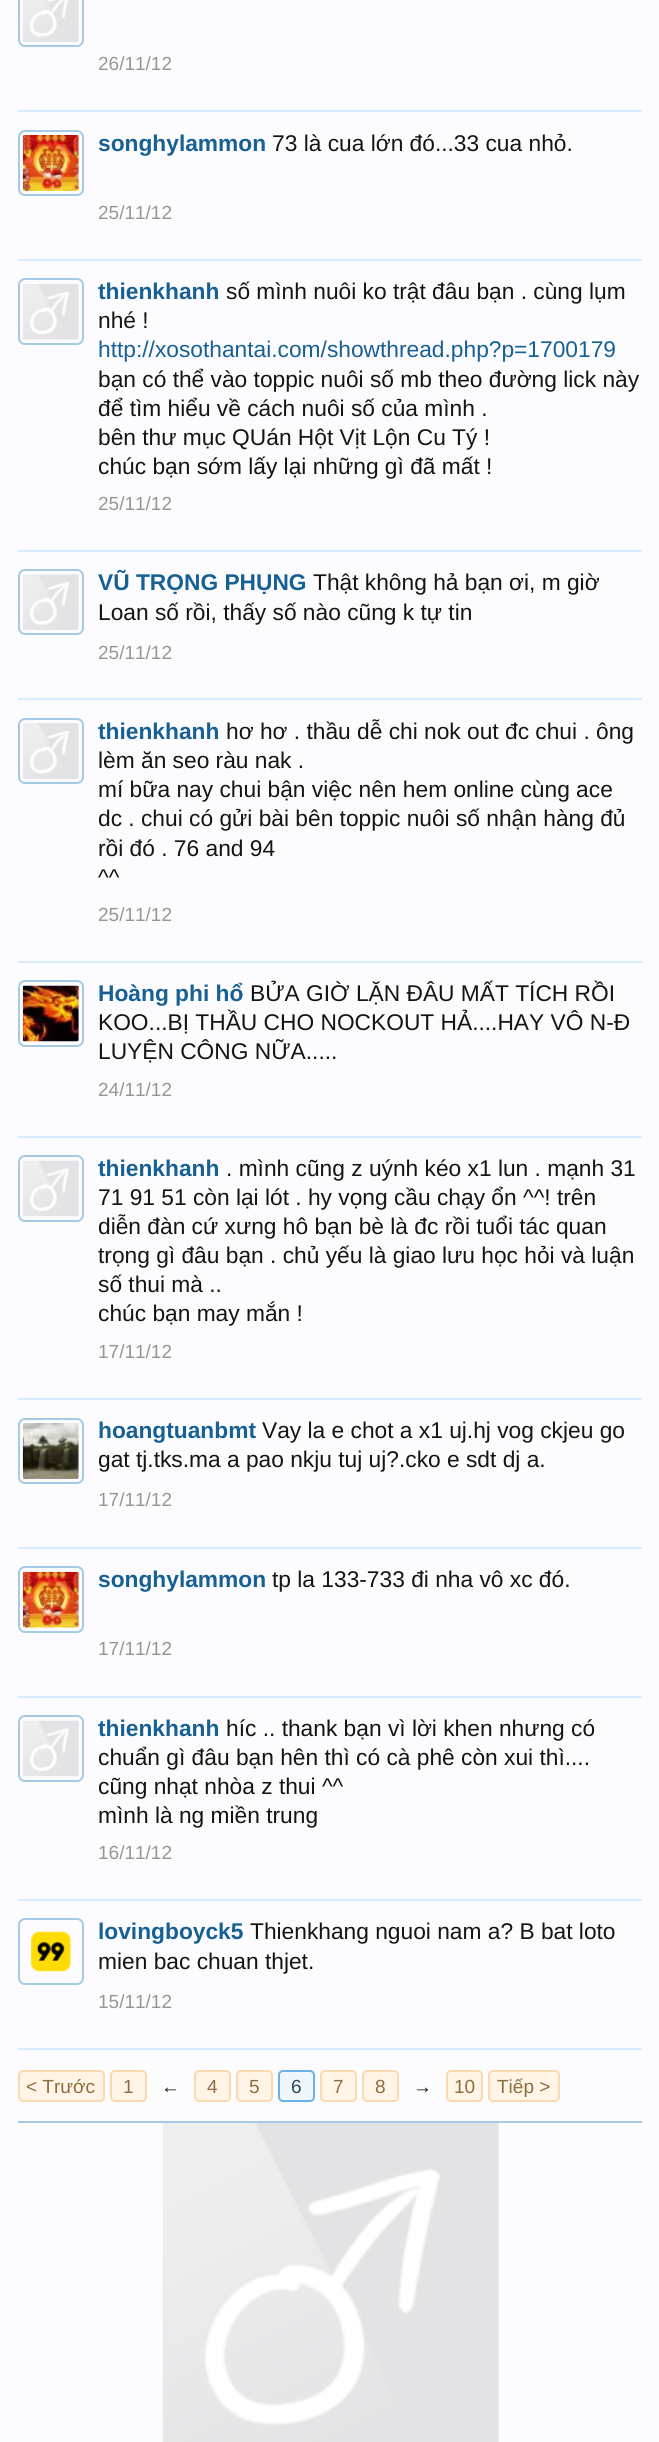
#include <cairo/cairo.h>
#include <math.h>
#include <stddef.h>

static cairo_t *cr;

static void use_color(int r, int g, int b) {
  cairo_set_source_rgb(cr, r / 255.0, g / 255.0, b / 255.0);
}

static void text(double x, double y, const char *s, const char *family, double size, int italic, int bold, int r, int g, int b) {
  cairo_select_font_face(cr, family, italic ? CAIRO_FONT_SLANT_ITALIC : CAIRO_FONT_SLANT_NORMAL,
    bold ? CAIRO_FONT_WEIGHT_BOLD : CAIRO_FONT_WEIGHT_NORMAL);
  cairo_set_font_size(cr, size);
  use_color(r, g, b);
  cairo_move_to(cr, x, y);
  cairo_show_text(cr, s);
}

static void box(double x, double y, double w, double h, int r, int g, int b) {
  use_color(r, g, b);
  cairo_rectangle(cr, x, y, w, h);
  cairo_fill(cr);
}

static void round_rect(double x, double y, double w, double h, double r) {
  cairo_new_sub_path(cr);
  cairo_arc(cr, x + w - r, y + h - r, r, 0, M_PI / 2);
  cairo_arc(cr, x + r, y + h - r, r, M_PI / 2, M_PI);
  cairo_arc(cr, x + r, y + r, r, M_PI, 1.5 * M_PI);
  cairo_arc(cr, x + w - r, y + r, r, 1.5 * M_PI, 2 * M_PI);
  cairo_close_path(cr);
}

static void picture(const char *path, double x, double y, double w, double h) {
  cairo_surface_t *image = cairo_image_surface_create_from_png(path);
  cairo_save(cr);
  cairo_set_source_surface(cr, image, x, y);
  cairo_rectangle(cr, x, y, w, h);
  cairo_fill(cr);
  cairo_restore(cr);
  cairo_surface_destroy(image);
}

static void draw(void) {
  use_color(252, 252, 255);
  cairo_paint(cr);
  box(18, 2121, 624, 2, 165, 202, 228);
  box(18, 110, 624, 2, 215, 237, 252);
  round_rect(19, -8, 64, 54, 6);
  use_color(165, 202, 228);
  cairo_stroke(cr);
  picture("img_01.png", 23, 0, 56, 42);
  box(18, 259, 624, 2, 215, 237, 252);
  round_rect(19, 131, 64, 64, 6);
  use_color(165, 202, 228);
  cairo_stroke(cr);
  picture("img_02.png", 22, 135, 57, 56);
  box(18, 550, 624, 2, 215, 237, 252);
  round_rect(19, 279, 64, 65, 6);
  use_color(165, 202, 228);
  cairo_stroke(cr);
  picture("img_03.png", 23, 284, 56, 56);
  box(18, 698, 624, 2, 215, 237, 252);
  round_rect(19, 570, 64, 64, 6);
  use_color(165, 202, 228);
  cairo_stroke(cr);
  picture("img_04.png", 23, 574, 56, 56);
  box(18, 961, 624, 2, 215, 237, 252);
  round_rect(19, 719, 64, 64, 6);
  use_color(165, 202, 228);
  cairo_stroke(cr);
  picture("img_05.png", 23, 723, 56, 56);
  box(18, 1136, 624, 2, 215, 237, 252);
  round_rect(19, 981, 64, 65, 6);
  use_color(165, 202, 228);
  cairo_stroke(cr);
  picture("img_06.png", 22, 985, 57, 57);
  box(18, 1398, 624, 2, 215, 237, 252);
  round_rect(19, 1156, 64, 65, 6);
  use_color(165, 202, 228);
  cairo_stroke(cr);
  picture("img_07.png", 23, 1160, 56, 57);
  box(18, 1547, 624, 2, 215, 237, 252);
  round_rect(19, 1419, 64, 64, 6);
  use_color(165, 202, 228);
  cairo_stroke(cr);
  picture("img_08.png", 22, 1423, 57, 56);
  box(18, 1696, 624, 2, 215, 237, 252);
  round_rect(19, 1567, 64, 65, 6);
  use_color(165, 202, 228);
  cairo_stroke(cr);
  picture("img_09.png", 22, 1571, 57, 57);
  box(18, 1899, 624, 2, 215, 237, 252);
  round_rect(19, 1716, 64, 65, 6);
  use_color(165, 202, 228);
  cairo_stroke(cr);
  picture("img_07.png", 23, 1720, 56, 57);
  box(18, 2048, 624, 2, 215, 237, 252);
  round_rect(19, 1919, 64, 65, 6);
  use_color(165, 202, 228);
  cairo_stroke(cr);
  picture("img_10.png", 30, 1931, 41, 41);
  use_color(255, 244, 229);
  round_rect(19, 2071, 85, 30, 4);
  cairo_fill_preserve(cr);
  use_color(249, 217, 176);
  cairo_stroke(cr);
  use_color(255, 244, 229);
  round_rect(111, 2071, 35, 30, 4);
  cairo_fill_preserve(cr);
  use_color(249, 217, 176);
  cairo_stroke(cr);
  use_color(255, 244, 229);
  round_rect(195, 2071, 35, 30, 4);
  cairo_fill_preserve(cr);
  use_color(249, 217, 176);
  cairo_stroke(cr);
  use_color(255, 244, 229);
  round_rect(237, 2071, 35, 30, 4);
  cairo_fill_preserve(cr);
  use_color(249, 217, 176);
  cairo_stroke(cr);
  use_color(240, 247, 252);
  round_rect(279, 2071, 35, 30, 4);
  cairo_fill_preserve(cr);
  use_color(108, 178, 228);
  cairo_stroke(cr);
  use_color(255, 244, 229);
  round_rect(321, 2071, 35, 30, 4);
  cairo_fill_preserve(cr);
  use_color(249, 217, 176);
  cairo_stroke(cr);
  use_color(255, 244, 229);
  round_rect(363, 2071, 35, 30, 4);
  cairo_fill_preserve(cr);
  use_color(249, 217, 176);
  cairo_stroke(cr);
  use_color(255, 244, 229);
  round_rect(447, 2071, 35, 30, 4);
  cairo_fill_preserve(cr);
  use_color(249, 217, 176);
  cairo_stroke(cr);
  use_color(255, 244, 229);
  round_rect(489, 2071, 70, 30, 4);
  cairo_fill_preserve(cr);
  use_color(249, 217, 176);
  cairo_stroke(cr);
  picture("img_11.png", 162, 2123, 337, 319);
  text(98, 70, "26/11/12", "Liberation Sans", 19, 0, 0, 150, 150, 150);
  text(98, 151, "songhylammon", "Liberation Sans", 22.75, 0, 1, 23, 96, 147);
  text(272, 151, "73 là cua lớn đó...33 cua nhỏ.", "Liberation Sans", 22.75, 0, 0, 20, 20, 20);
  text(98, 219, "25/11/12", "Liberation Sans", 19, 0, 0, 150, 150, 150);
  text(98, 299, "thienkhanh", "Liberation Sans", 22.75, 0, 1, 23, 96, 147);
  text(226, 299, "số mình nuôi ko trật đâu bạn . cùng lụm", "Liberation Sans", 22.75, 0, 0, 20, 20, 20);
  text(98, 328, "nhé !", "Liberation Sans", 22.75, 0, 0, 20, 20, 20);
  text(98, 357, "http://xosothantai.com/showthread.php?p=1700179", "Liberation Sans", 22.75, 0, 0, 23, 96, 147);
  text(98, 387, "bạn có thể vào toppic nuôi số mb theo đường lick này", "Liberation Sans", 22.75, 0, 0, 20, 20, 20);
  text(98, 416, "để tìm hiểu về cách nuôi số của mình .", "Liberation Sans", 22.75, 0, 0, 20, 20, 20);
  text(98, 445, "bên thư mục QUán Hột Vịt Lộn Cu Tý !", "Liberation Sans", 22.75, 0, 0, 20, 20, 20);
  text(98, 474, "chúc bạn sớm lấy lại những gì đã mất !", "Liberation Sans", 22.75, 0, 0, 20, 20, 20);
  text(98, 510, "25/11/12", "Liberation Sans", 19, 0, 0, 150, 150, 150);
  text(98, 590, "VŨ TRỌNG PHỤNG", "Liberation Sans", 22.75, 0, 1, 23, 96, 147);
  text(313, 590, "Thật không hả bạn ơi, m giờ", "Liberation Sans", 22.75, 0, 0, 20, 20, 20);
  text(98, 620, "Loan số rồi, thấy số nào cũng k tự tin", "Liberation Sans", 22.75, 0, 0, 20, 20, 20);
  text(98, 659, "25/11/12", "Liberation Sans", 19, 0, 0, 150, 150, 150);
  text(98, 739, "thienkhanh", "Liberation Sans", 22.75, 0, 1, 23, 96, 147);
  text(226, 739, "hơ hơ . thầu dễ chi nok out đc chui . ông", "Liberation Sans", 22.75, 0, 0, 20, 20, 20);
  text(98, 768, "lèm ăn seo ràu nak .", "Liberation Sans", 22.75, 0, 0, 20, 20, 20);
  text(98, 797, "mí bữa nay chui bận việc nên hem online cùng ace", "Liberation Sans", 22.75, 0, 0, 20, 20, 20);
  text(98, 826, "dc . chui có gửi bài bên toppic nuôi số nhận hàng đủ", "Liberation Sans", 22.75, 0, 0, 20, 20, 20);
  text(98, 856, "rồi đó . 76 and 94", "Liberation Sans", 22.75, 0, 0, 20, 20, 20);
  text(98, 885, "^^", "Liberation Sans", 22.75, 0, 0, 20, 20, 20);
  text(98, 921, "25/11/12", "Liberation Sans", 19, 0, 0, 150, 150, 150);
  text(98, 1001, "Hoàng phi hổ", "Liberation Sans", 22.75, 0, 1, 23, 96, 147);
  text(250, 1001, "BỬA GIỜ LẶN ĐÂU MẤT TÍCH RỒI", "Liberation Sans", 22.75, 0, 0, 20, 20, 20);
  text(98, 1030, "KOO...BỊ THẦU CHO NOCKOUT HẢ....HAY VÔ N-Đ", "Liberation Sans", 22.75, 0, 0, 20, 20, 20);
  text(98, 1059, "LUYỆN CÔNG NỮA.....", "Liberation Sans", 22.75, 0, 0, 20, 20, 20);
  text(98, 1096, "24/11/12", "Liberation Sans", 19, 0, 0, 150, 150, 150);
  text(98, 1176, "thienkhanh", "Liberation Sans", 22.75, 0, 1, 23, 96, 147);
  text(226, 1176, ". mình cũng z uýnh kéo x1 lun . mạnh 31", "Liberation Sans", 22.75, 0, 0, 20, 20, 20);
  text(98, 1205, "71 91 51 còn lại lót . hy vọng cầu chạy ổn ^^! trên", "Liberation Sans", 22.75, 0, 0, 20, 20, 20);
  text(98, 1234, "diễn đàn cứ xưng hô bạn bè là đc rồi tuổi tác quan", "Liberation Sans", 22.75, 0, 0, 20, 20, 20);
  text(98, 1263, "trọng gì đâu bạn . chủ yếu là giao lưu học hỏi và luận", "Liberation Sans", 22.75, 0, 0, 20, 20, 20);
  text(98, 1292, "số thui mà ..", "Liberation Sans", 22.75, 0, 0, 20, 20, 20);
  text(98, 1321, "chúc bạn may mắn !", "Liberation Sans", 22.75, 0, 0, 20, 20, 20);
  text(98, 1358, "17/11/12", "Liberation Sans", 19, 0, 0, 150, 150, 150);
  text(98, 1438, "hoangtuanbmt", "Liberation Sans", 22.75, 0, 1, 23, 96, 147);
  text(262, 1438, "Vay la e chot a x1 uj.hj vog ckjeu go", "Liberation Sans", 22.75, 0, 0, 20, 20, 20);
  text(98, 1467, "gat tj.tks.ma a pao nkju tuj uj?.cko e sdt dj a.", "Liberation Sans", 22.75, 0, 0, 20, 20, 20);
  text(98, 1506, "17/11/12", "Liberation Sans", 19, 0, 0, 150, 150, 150);
  text(98, 1587, "songhylammon", "Liberation Sans", 22.75, 0, 1, 23, 96, 147);
  text(272, 1587, "tp la 133-733 đi nha vô xc đó.", "Liberation Sans", 22.75, 0, 0, 20, 20, 20);
  text(98, 1655, "17/11/12", "Liberation Sans", 19, 0, 0, 150, 150, 150);
  text(98, 1736, "thienkhanh", "Liberation Sans", 22.75, 0, 1, 23, 96, 147);
  text(226, 1736, "híc .. thank bạn vì lời khen nhưng có", "Liberation Sans", 22.75, 0, 0, 20, 20, 20);
  text(98, 1765, "chuẩn gì đâu bạn hên thì có cà phê còn xui thì....", "Liberation Sans", 22.75, 0, 0, 20, 20, 20);
  text(98, 1794, "cũng nhạt nhòa z thui ^^", "Liberation Sans", 22.75, 0, 0, 20, 20, 20);
  text(98, 1823, "mình là ng miền trung", "Liberation Sans", 22.75, 0, 0, 20, 20, 20);
  text(98, 1859, "16/11/12", "Liberation Sans", 19, 0, 0, 150, 150, 150);
  text(98, 1939, "lovingboyck5", "Liberation Sans", 22.75, 0, 1, 23, 96, 147);
  text(250, 1939, "Thienkhang nguoi nam a? B bat loto", "Liberation Sans", 22.75, 0, 0, 20, 20, 20);
  text(98, 1969, "mien bac chuan thjet.", "Liberation Sans", 22.75, 0, 0, 20, 20, 20);
  text(98, 2008, "15/11/12", "Liberation Sans", 19, 0, 0, 150, 150, 150);
  text(26, 2093, "< Trước", "Liberation Sans", 19, 0, 0, 143, 108, 63);
  text(123, 2093, "1", "Liberation Sans", 19, 0, 0, 143, 108, 63);
  text(161, 2093, "←", "Liberation Sans", 19, 0, 0, 20, 20, 20);
  text(207, 2093, "4", "Liberation Sans", 19, 0, 0, 143, 108, 63);
  text(249, 2093, "5", "Liberation Sans", 19, 0, 0, 143, 108, 63);
  text(291, 2093, "6", "Liberation Sans", 19, 0, 0, 43, 72, 92);
  text(333, 2093, "7", "Liberation Sans", 19, 0, 0, 143, 108, 63);
  text(375, 2093, "8", "Liberation Sans", 19, 0, 0, 143, 108, 63);
  text(413, 2093, "→", "Liberation Sans", 19, 0, 0, 20, 20, 20);
  text(454, 2093, "10", "Liberation Sans", 19, 0, 0, 143, 108, 63);
  text(497, 2093, "Tiếp >", "Liberation Sans", 19, 0, 0, 143, 108, 63);
}

int main(void) {
  cairo_surface_t *surface = cairo_image_surface_create(CAIRO_FORMAT_RGB24, 659, 2442);
  cr = cairo_create(surface);
  cairo_font_options_t *options = cairo_font_options_create();
  cairo_font_options_set_hint_metrics(options, CAIRO_HINT_METRICS_OFF);
  cairo_font_options_set_hint_style(options, CAIRO_HINT_STYLE_NONE);
  cairo_set_font_options(cr, options);
  cairo_set_miter_limit(cr, 4);
  draw();
  cairo_surface_write_to_png(surface, "out.png");
  cairo_font_options_destroy(options);
  cairo_destroy(cr);
  cairo_surface_destroy(surface);
  return 0;
}
